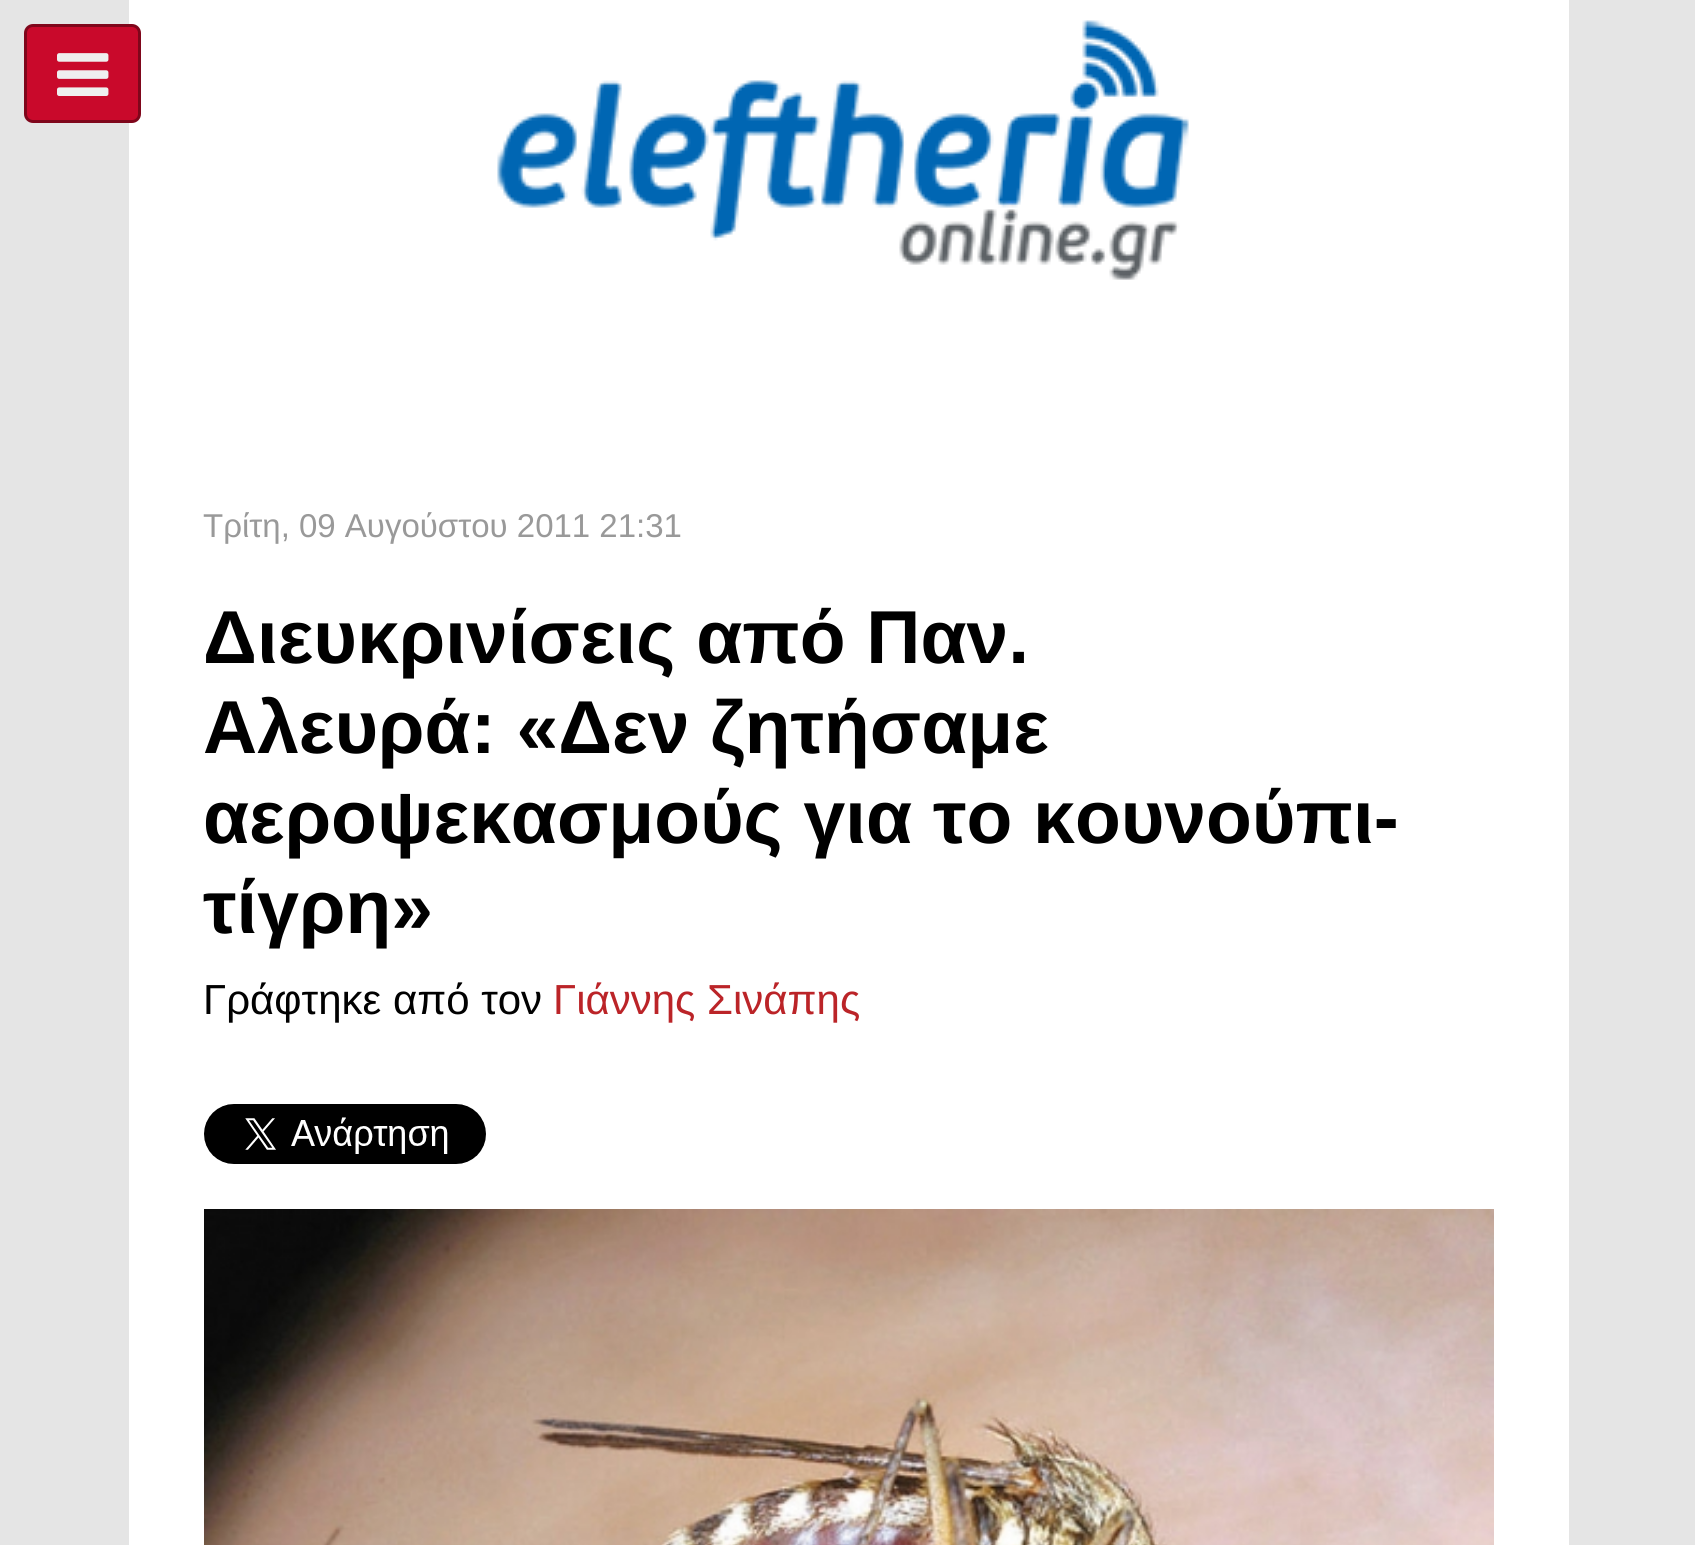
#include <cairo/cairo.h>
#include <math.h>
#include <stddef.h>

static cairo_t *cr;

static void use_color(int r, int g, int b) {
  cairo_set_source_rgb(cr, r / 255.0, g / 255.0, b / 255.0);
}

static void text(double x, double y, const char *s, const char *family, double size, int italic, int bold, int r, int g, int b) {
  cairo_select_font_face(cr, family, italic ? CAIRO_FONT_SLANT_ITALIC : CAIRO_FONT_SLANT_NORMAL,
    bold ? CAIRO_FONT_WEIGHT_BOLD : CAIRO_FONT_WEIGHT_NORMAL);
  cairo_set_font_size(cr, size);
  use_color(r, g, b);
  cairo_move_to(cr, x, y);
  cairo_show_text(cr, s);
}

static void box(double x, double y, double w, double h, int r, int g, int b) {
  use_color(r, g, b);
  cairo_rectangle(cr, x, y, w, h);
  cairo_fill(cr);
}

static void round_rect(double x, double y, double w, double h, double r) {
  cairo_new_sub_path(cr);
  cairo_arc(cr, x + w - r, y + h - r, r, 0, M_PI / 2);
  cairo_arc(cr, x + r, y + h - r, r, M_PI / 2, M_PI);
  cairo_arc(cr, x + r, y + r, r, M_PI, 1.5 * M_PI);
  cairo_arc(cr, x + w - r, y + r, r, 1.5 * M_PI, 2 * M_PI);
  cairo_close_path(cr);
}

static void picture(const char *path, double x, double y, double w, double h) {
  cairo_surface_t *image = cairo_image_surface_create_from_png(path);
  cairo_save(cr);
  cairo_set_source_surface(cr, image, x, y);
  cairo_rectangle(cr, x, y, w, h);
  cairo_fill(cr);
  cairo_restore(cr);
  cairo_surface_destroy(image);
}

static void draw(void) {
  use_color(229, 229, 229);
  cairo_paint(cr);
  box(129, 0, 1440, 1545, 255, 255, 255);
  use_color(201, 9, 43);
  round_rect(25.5, 25.5, 114, 96, 7.5);
  cairo_fill_preserve(cr);
  use_color(127, 6, 27);
  cairo_set_line_width(cr, 3);
  cairo_stroke(cr);
  picture("img_01.png", 57, 53, 52, 43);
  picture("img_02.png", 497, 20, 692, 260);
  picture("img_03.png", 204, 1104, 282, 60);
  picture("img_04.png", 204, 1209, 1290, 336);
  text(203, 537, "Τρίτη, 09 Αυγούστου 2011 21:31", "Liberation Sans", 33, 0, 0, 153, 153, 153);
  text(203, 663, "Διευκρινίσεις από Παν.", "Liberation Sans", 75, 0, 1, 0, 0, 0);
  text(203, 753, "Αλευρά: «Δεν ζητήσαμε", "Liberation Sans", 75, 0, 1, 0, 0, 0);
  text(203, 843, "αεροψεκασμούς για το κουνούπι-", "Liberation Sans", 75, 0, 1, 0, 0, 0);
  text(203, 933, "τίγρη»", "Liberation Sans", 75, 0, 1, 0, 0, 0);
  text(203, 1014, "Γράφτηκε από τον", "Liberation Sans", 42, 0, 0, 0, 0, 0);
  text(553, 1014, "Γιάννης Σινάπης", "Liberation Sans", 42, 0, 0, 187, 36, 40);
}

int main(void) {
  cairo_surface_t *surface = cairo_image_surface_create(CAIRO_FORMAT_RGB24, 1695, 1545);
  cr = cairo_create(surface);
  cairo_font_options_t *options = cairo_font_options_create();
  cairo_font_options_set_hint_metrics(options, CAIRO_HINT_METRICS_OFF);
  cairo_font_options_set_hint_style(options, CAIRO_HINT_STYLE_NONE);
  cairo_set_font_options(cr, options);
  cairo_set_miter_limit(cr, 4);
  draw();
  cairo_surface_write_to_png(surface, "out.png");
  cairo_font_options_destroy(options);
  cairo_destroy(cr);
  cairo_surface_destroy(surface);
  return 0;
}
